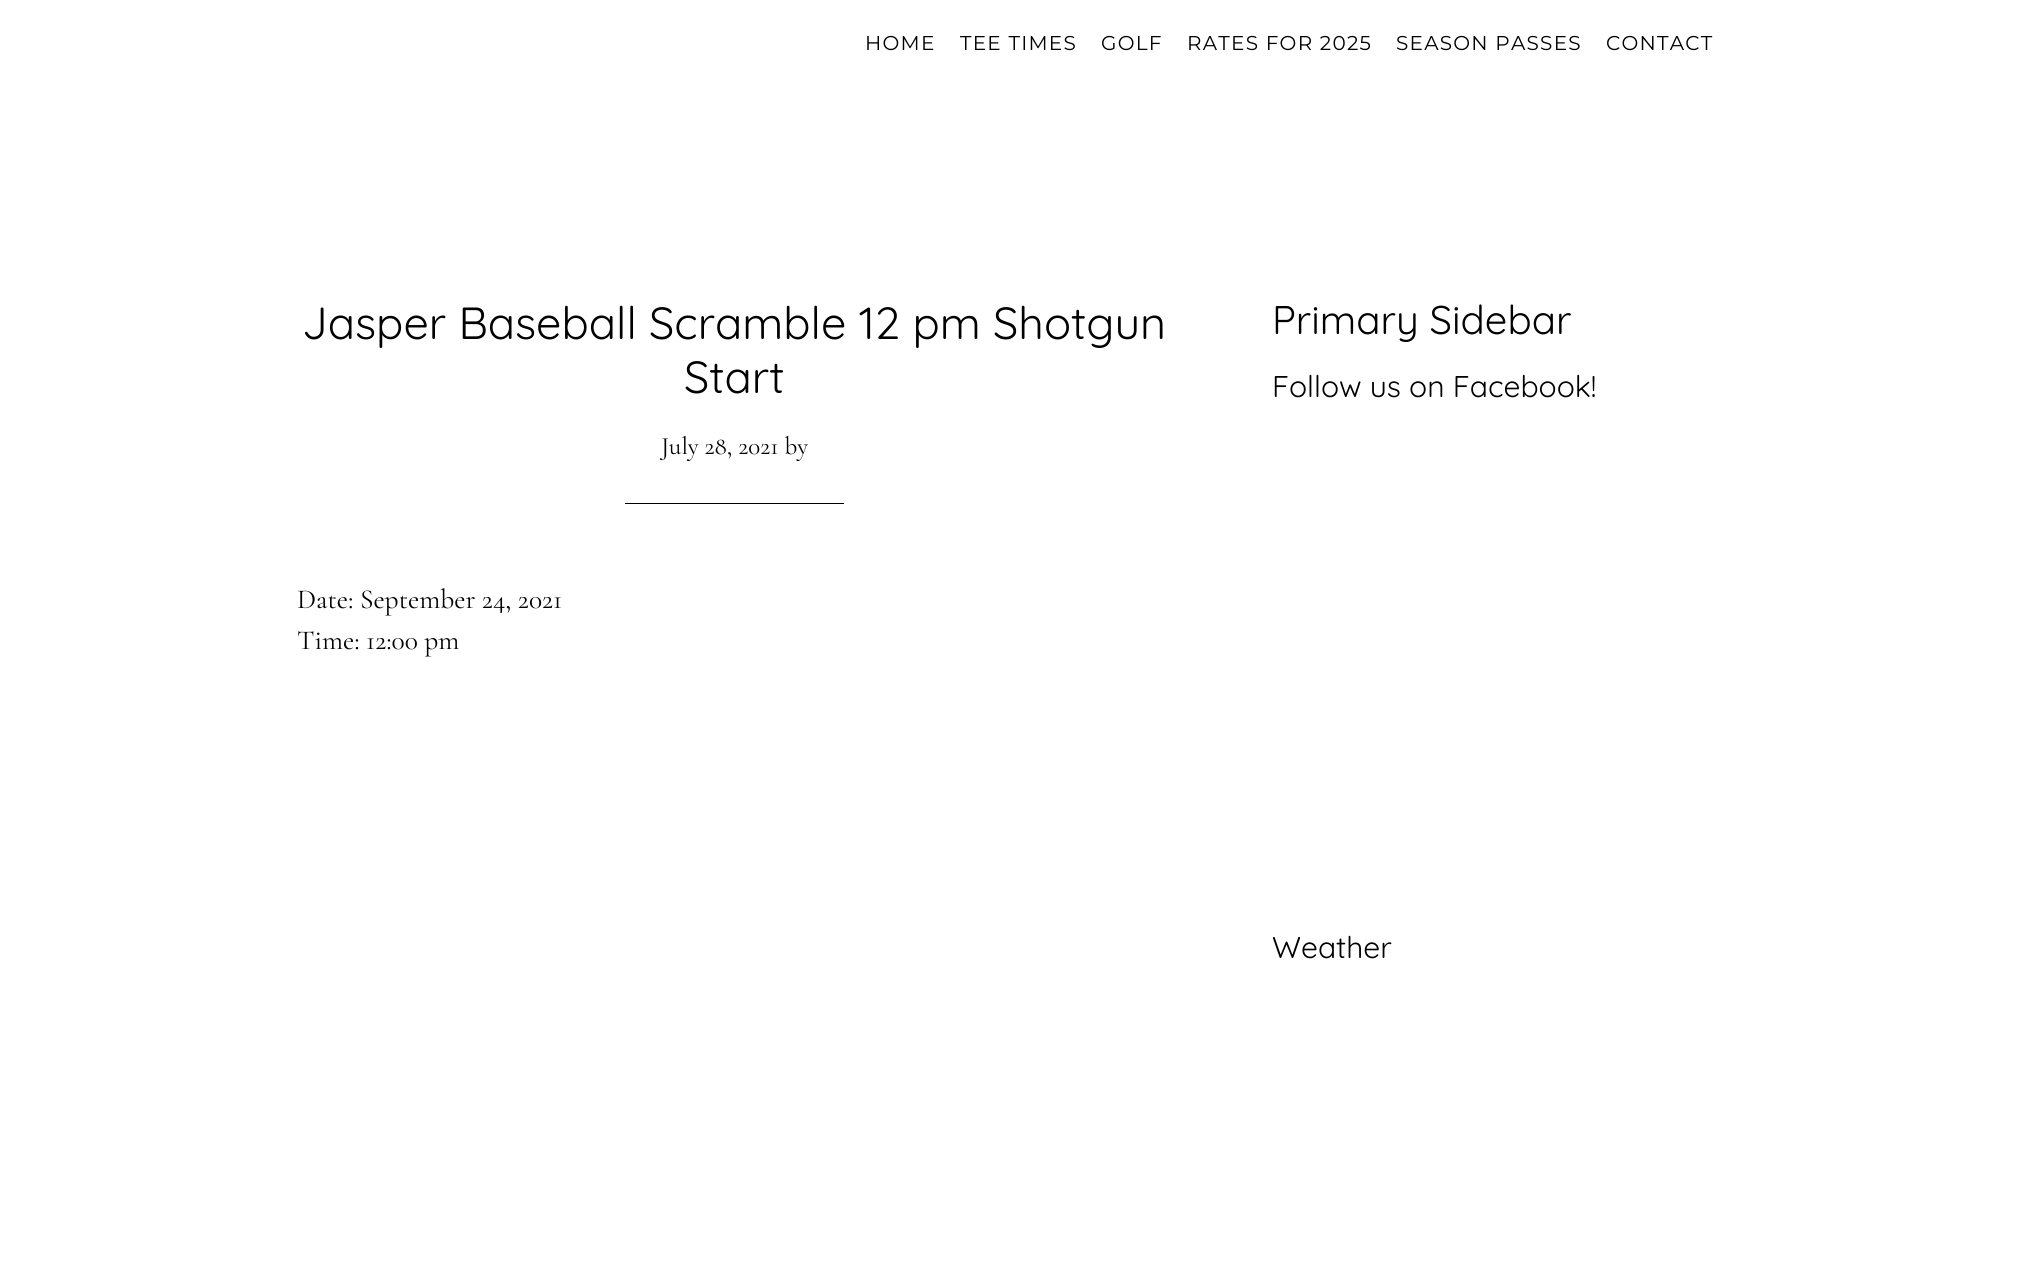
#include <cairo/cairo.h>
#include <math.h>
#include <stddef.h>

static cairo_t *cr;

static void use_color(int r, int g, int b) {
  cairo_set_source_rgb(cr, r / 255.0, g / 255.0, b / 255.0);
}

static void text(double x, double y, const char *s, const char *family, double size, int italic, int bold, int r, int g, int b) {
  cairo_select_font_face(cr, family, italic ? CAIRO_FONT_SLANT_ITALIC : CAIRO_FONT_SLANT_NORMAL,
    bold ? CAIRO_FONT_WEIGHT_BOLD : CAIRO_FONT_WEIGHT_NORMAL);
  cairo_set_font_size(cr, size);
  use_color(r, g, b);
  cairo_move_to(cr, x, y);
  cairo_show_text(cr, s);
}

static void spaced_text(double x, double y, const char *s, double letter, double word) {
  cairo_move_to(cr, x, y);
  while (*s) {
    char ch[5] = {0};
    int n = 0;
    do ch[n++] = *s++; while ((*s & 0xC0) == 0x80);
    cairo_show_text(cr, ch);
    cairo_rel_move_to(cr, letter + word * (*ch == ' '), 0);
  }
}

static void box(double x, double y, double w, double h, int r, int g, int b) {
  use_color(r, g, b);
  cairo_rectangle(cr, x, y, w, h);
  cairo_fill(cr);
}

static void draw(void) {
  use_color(255, 255, 255);
  cairo_paint(cr);
  box(625, 503, 219, 1, 0, 0, 0);
  cairo_select_font_face(cr, "Montserrat Thin", CAIRO_FONT_SLANT_NORMAL, CAIRO_FONT_WEIGHT_NORMAL);
  cairo_set_font_size(cr, 20);
  spaced_text(865, 50, "HOME", 1.25, 0);
  spaced_text(960, 50, "TEE TIMES", 1.25, 0);
  spaced_text(1101, 50, "GOLF", 1.25, 0);
  spaced_text(1187, 50, "RATES FOR 2025", 1.25, 0);
  spaced_text(1396, 50, "SEASON PASSES", 1.25, 0);
  spaced_text(1606, 50, "CONTACT", 1.25, 0);
  text(302, 339, "Jasper Baseball Scramble 12 pm Shotgun", "Quicksand", 45, 0, 0, 0, 0, 0);
  text(684, 393, "Start", "Quicksand", 45, 0, 0, 0, 0, 0);
  text(661, 454, "July 28, 2021 by", "Cormorant Garamond", 25, 0, 0, 0, 0, 0);
  text(297, 608, "Date: September 24, 2021", "Cormorant Garamond", 27.5, 0, 0, 0, 0, 0);
  text(297, 649, "Time: 12:00 pm", "Cormorant Garamond", 27.5, 0, 0, 0, 0, 0);
  text(1272, 334, "Primary Sidebar", "Quicksand", 40, 0, 0, 0, 0, 0);
  text(1272, 397, "Follow us on Facebook!", "Quicksand", 30, 0, 0, 0, 0, 0);
  text(1272, 958, "Weather", "Quicksand", 30, 0, 0, 0, 0, 0);
}

int main(void) {
  cairo_surface_t *surface = cairo_image_surface_create(CAIRO_FORMAT_RGB24, 2018, 1263);
  cr = cairo_create(surface);
  cairo_font_options_t *options = cairo_font_options_create();
  cairo_font_options_set_hint_metrics(options, CAIRO_HINT_METRICS_OFF);
  cairo_font_options_set_hint_style(options, CAIRO_HINT_STYLE_NONE);
  cairo_set_font_options(cr, options);
  cairo_set_miter_limit(cr, 4);
  draw();
  cairo_surface_write_to_png(surface, "out.png");
  cairo_font_options_destroy(options);
  cairo_destroy(cr);
  cairo_surface_destroy(surface);
  return 0;
}
